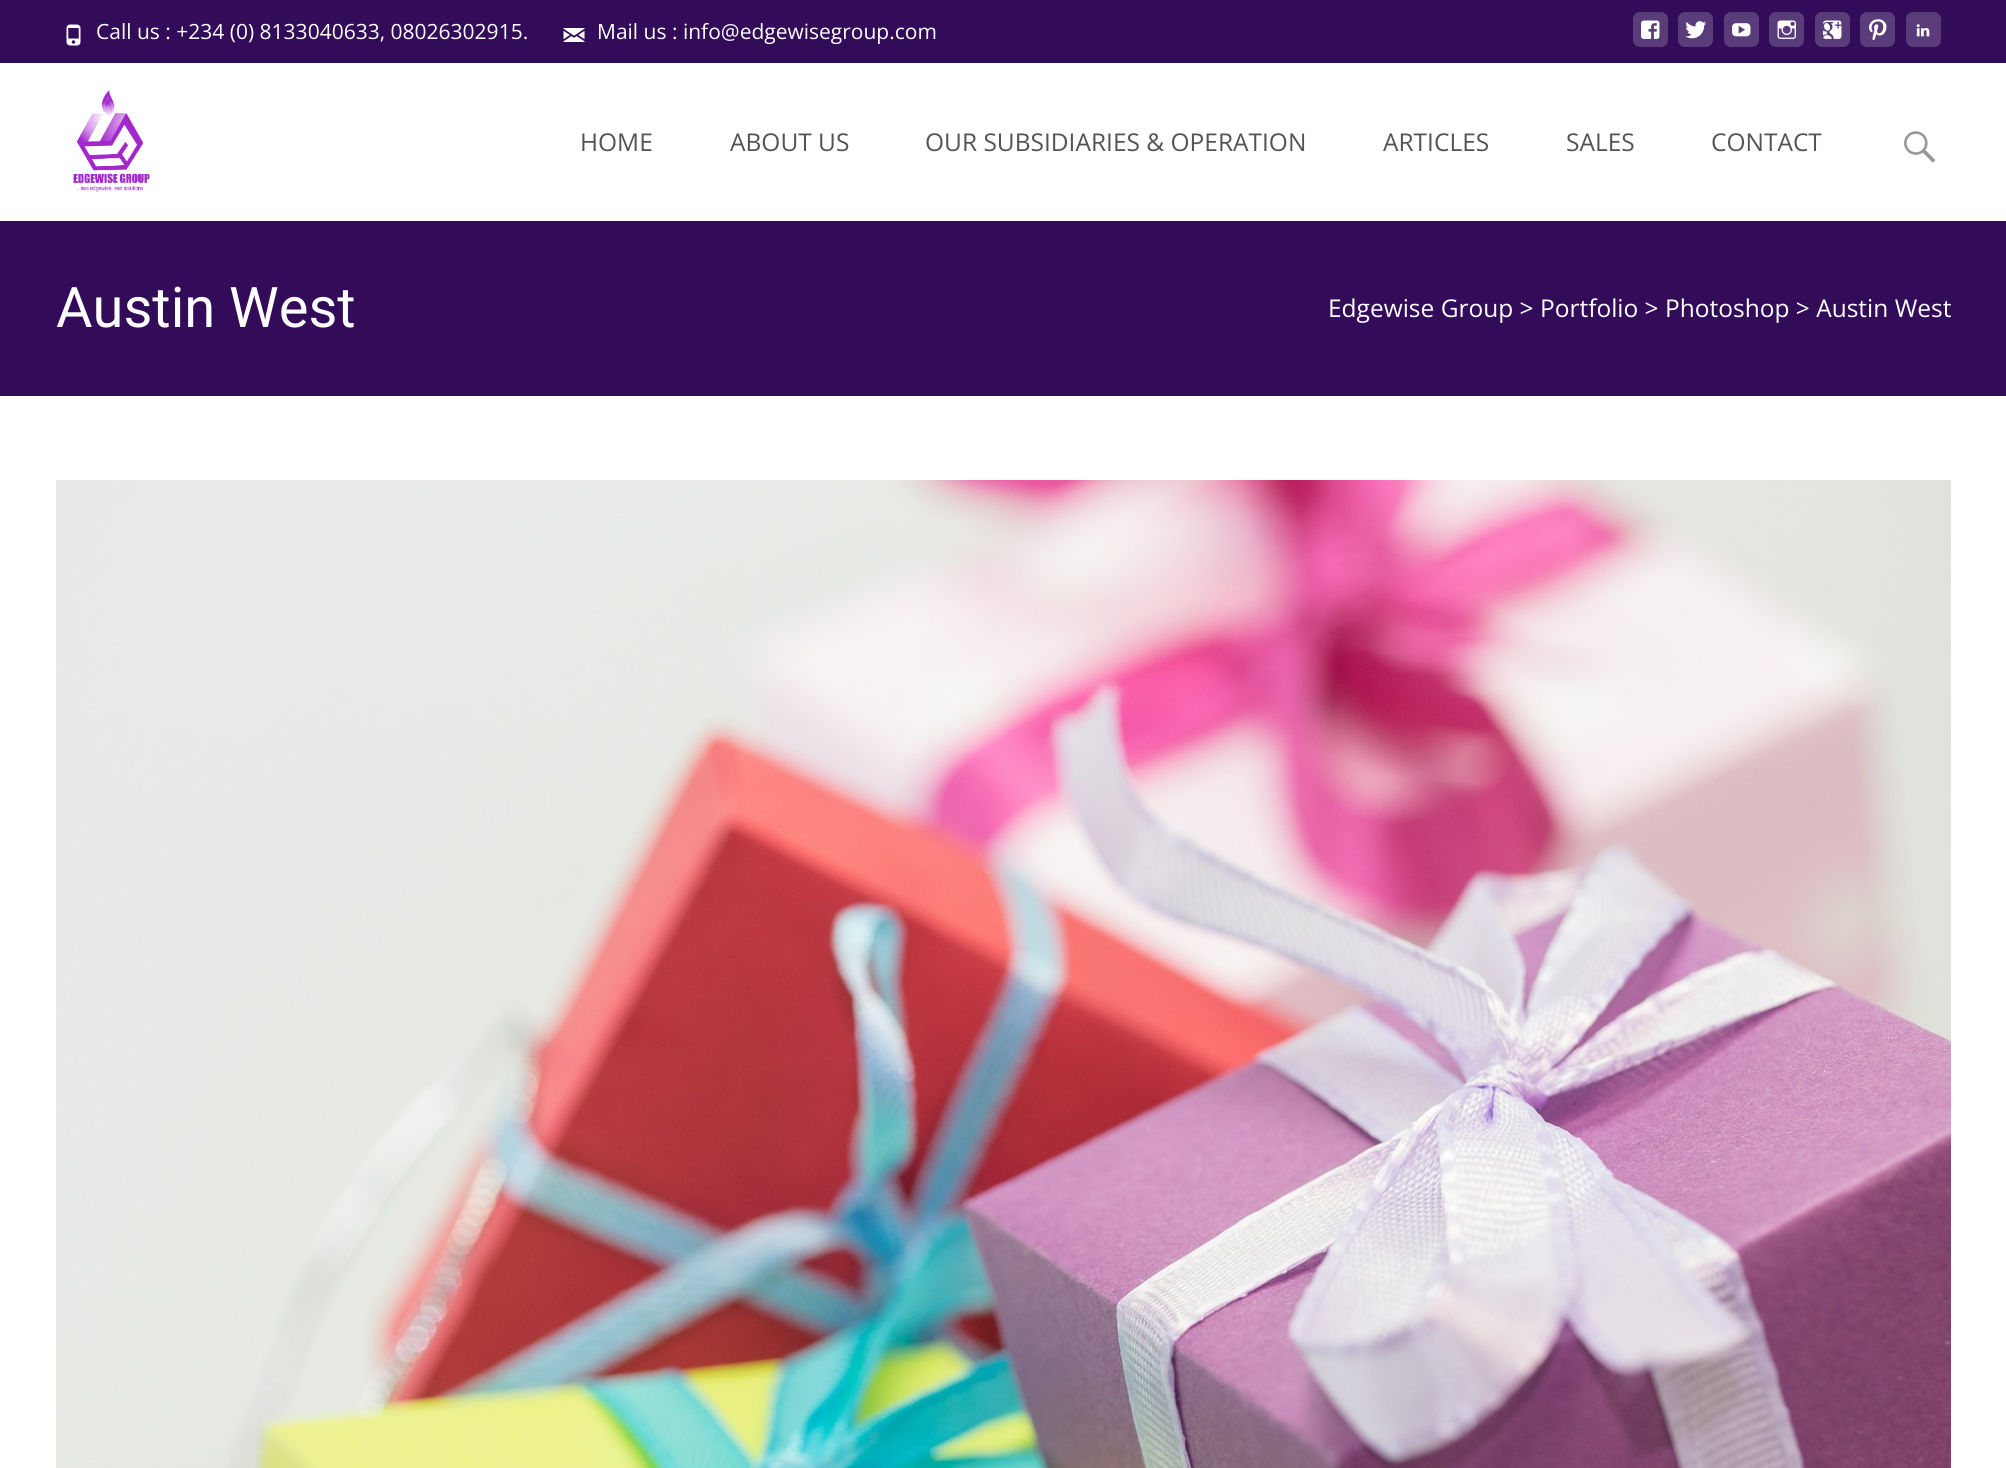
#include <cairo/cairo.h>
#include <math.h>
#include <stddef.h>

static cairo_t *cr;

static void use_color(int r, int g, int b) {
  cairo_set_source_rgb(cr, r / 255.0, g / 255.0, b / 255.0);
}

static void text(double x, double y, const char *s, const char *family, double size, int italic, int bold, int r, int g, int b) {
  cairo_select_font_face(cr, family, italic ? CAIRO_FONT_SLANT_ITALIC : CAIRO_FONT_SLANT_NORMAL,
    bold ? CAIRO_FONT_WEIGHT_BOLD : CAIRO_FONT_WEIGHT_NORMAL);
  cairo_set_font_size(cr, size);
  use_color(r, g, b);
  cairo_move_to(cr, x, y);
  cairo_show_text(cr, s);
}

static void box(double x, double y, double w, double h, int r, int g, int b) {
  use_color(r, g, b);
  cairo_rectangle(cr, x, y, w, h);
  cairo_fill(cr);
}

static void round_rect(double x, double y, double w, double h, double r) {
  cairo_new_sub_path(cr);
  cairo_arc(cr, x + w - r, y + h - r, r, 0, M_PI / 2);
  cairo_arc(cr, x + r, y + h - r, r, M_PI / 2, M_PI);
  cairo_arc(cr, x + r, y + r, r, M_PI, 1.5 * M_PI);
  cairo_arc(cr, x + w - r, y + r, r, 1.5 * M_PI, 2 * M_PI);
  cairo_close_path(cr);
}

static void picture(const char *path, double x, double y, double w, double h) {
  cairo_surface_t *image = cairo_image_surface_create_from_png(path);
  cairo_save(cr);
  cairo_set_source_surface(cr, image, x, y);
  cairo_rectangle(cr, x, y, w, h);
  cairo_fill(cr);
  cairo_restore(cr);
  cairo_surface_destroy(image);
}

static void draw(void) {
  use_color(255, 255, 255);
  cairo_paint(cr);
  box(0, 0, 2006, 63, 50, 11, 89);
  picture("img_01.png", 66, 24, 15, 22);
  picture("img_02.png", 563, 28, 22, 14);
  use_color(91, 60, 122);
  round_rect(1633, 12, 35, 35, 7);
  cairo_fill(cr);
  picture("img_03.png", 1641, 20, 19, 19);
  round_rect(1678, 12, 35, 35, 7);
  cairo_fill(cr);
  picture("img_04.png", 1685, 21, 22, 18);
  round_rect(1724, 12, 35, 35, 7);
  cairo_fill(cr);
  picture("img_05.png", 1732, 23, 19, 14);
  round_rect(1769, 12, 35, 35, 7);
  cairo_fill(cr);
  picture("img_06.png", 1777, 20, 19, 19);
  round_rect(1815, 12, 35, 35, 7);
  cairo_fill(cr);
  picture("img_07.png", 1823, 20, 19, 19);
  round_rect(1860, 12, 35, 35, 7);
  cairo_fill(cr);
  picture("img_08.png", 1869, 19, 18, 22);
  round_rect(1906, 12, 35, 35, 7);
  cairo_fill(cr);
  picture("img_09.png", 1916, 24, 14, 13);
  picture("img_10.png", 73, 90, 77, 102);
  picture("img_11.png", 1904, 131, 32, 32);
  box(0, 221, 2006, 175, 50, 11, 89);
  picture("img_12.png", 56, 480, 1895, 988);
  text(96, 39, "Call us : +234 (0) 8133040633, 08026302915.", "Open Sans", 21, 0, 0, 255, 255, 255);
  text(597, 39, "Mail us : info@edgewisegroup.com", "Open Sans", 21, 0, 0, 255, 255, 255);
  text(580, 151, "HOME", "Open Sans", 24.5, 0, 0, 84, 84, 84);
  text(730, 151, "ABOUT US", "Open Sans", 24.5, 0, 0, 84, 84, 84);
  text(925, 151, "OUR SUBSIDIARIES & OPERATION", "Open Sans", 24.5, 0, 0, 84, 84, 84);
  text(1383, 151, "ARTICLES", "Open Sans", 24.5, 0, 0, 84, 84, 84);
  text(1566, 151, "SALES", "Open Sans", 24.5, 0, 0, 84, 84, 84);
  text(1711, 151, "CONTACT", "Open Sans", 24.5, 0, 0, 84, 84, 84);
  text(56, 327, "Austin West", "Roboto", 56, 0, 0, 255, 255, 255);
  text(1328, 317, "Edgewise Group > Portfolio > Photoshop > Austin West", "Open Sans", 24.5, 0, 0, 255, 255, 255);
}

int main(void) {
  cairo_surface_t *surface = cairo_image_surface_create(CAIRO_FORMAT_RGB24, 2006, 1468);
  cr = cairo_create(surface);
  cairo_font_options_t *options = cairo_font_options_create();
  cairo_font_options_set_hint_metrics(options, CAIRO_HINT_METRICS_OFF);
  cairo_font_options_set_hint_style(options, CAIRO_HINT_STYLE_NONE);
  cairo_set_font_options(cr, options);
  cairo_set_miter_limit(cr, 4);
  draw();
  cairo_surface_write_to_png(surface, "out.png");
  cairo_font_options_destroy(options);
  cairo_destroy(cr);
  cairo_surface_destroy(surface);
  return 0;
}
